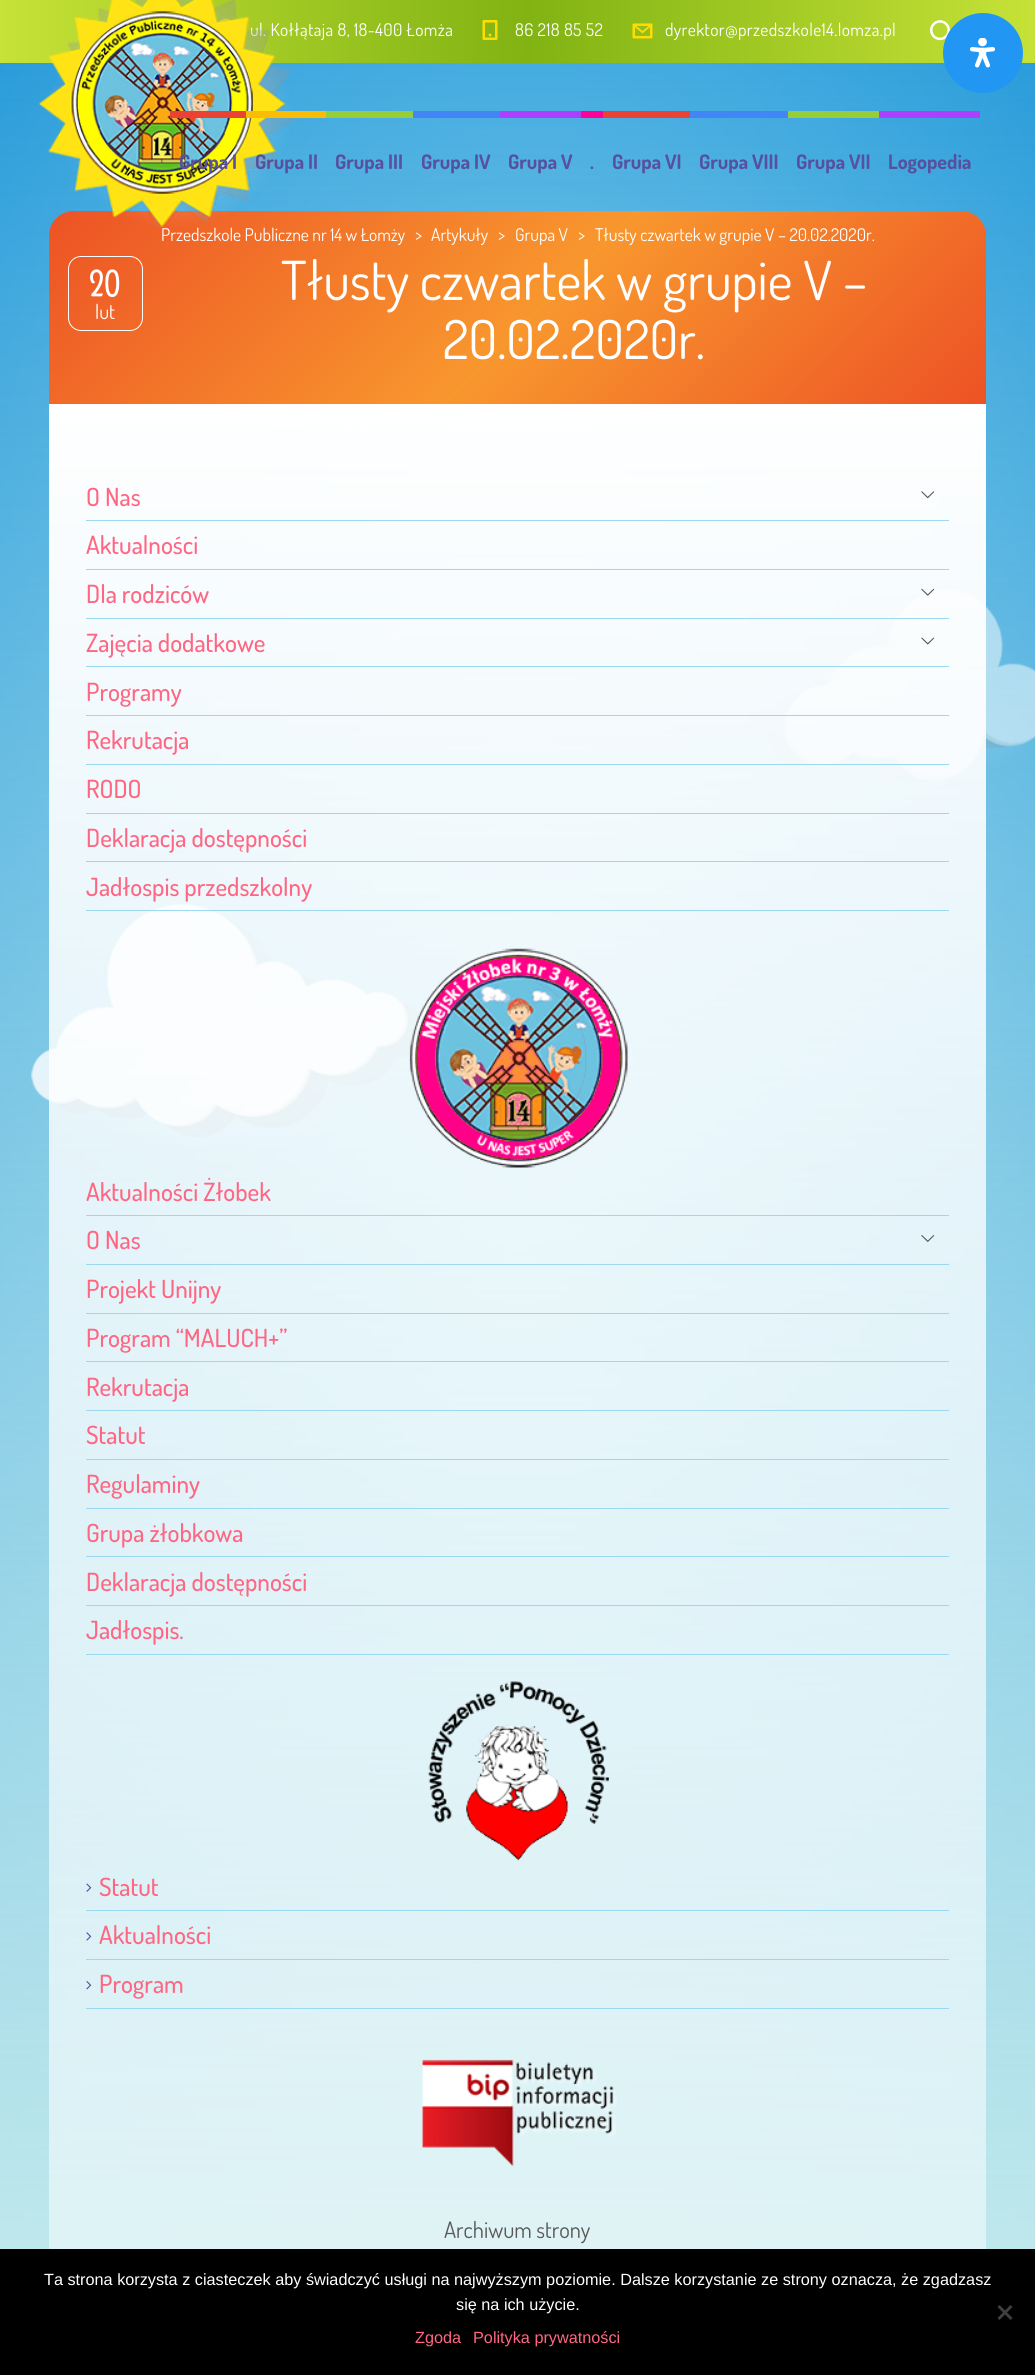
#include <cairo/cairo.h>
#include <math.h>
#include <stddef.h>

static cairo_t *cr;

static void use_color(int r, int g, int b) {
  cairo_set_source_rgb(cr, r / 255.0, g / 255.0, b / 255.0);
}

static void text(double x, double y, const char *s, const char *family, double size, int italic, int bold, int r, int g, int b) {
  cairo_select_font_face(cr, family, italic ? CAIRO_FONT_SLANT_ITALIC : CAIRO_FONT_SLANT_NORMAL,
    bold ? CAIRO_FONT_WEIGHT_BOLD : CAIRO_FONT_WEIGHT_NORMAL);
  cairo_set_font_size(cr, size);
  use_color(r, g, b);
  cairo_move_to(cr, x, y);
  cairo_show_text(cr, s);
}

static void spaced_text(double x, double y, const char *s, double letter, double word) {
  cairo_move_to(cr, x, y);
  while (*s) {
    char ch[5] = {0};
    int n = 0;
    do ch[n++] = *s++; while ((*s & 0xC0) == 0x80);
    cairo_show_text(cr, ch);
    cairo_rel_move_to(cr, letter + word * (*ch == ' '), 0);
  }
}

static void box(double x, double y, double w, double h, int r, int g, int b) {
  use_color(r, g, b);
  cairo_rectangle(cr, x, y, w, h);
  cairo_fill(cr);
}

static void round_rect(double x, double y, double w, double h, double r) {
  cairo_new_sub_path(cr);
  cairo_arc(cr, x + w - r, y + h - r, r, 0, M_PI / 2);
  cairo_arc(cr, x + r, y + h - r, r, M_PI / 2, M_PI);
  cairo_arc(cr, x + r, y + r, r, M_PI, 1.5 * M_PI);
  cairo_arc(cr, x + w - r, y + r, r, 1.5 * M_PI, 2 * M_PI);
  cairo_close_path(cr);
}

static void picture(const char *path, double x, double y, double w, double h) {
  cairo_surface_t *image = cairo_image_surface_create_from_png(path);
  cairo_save(cr);
  cairo_set_source_surface(cr, image, x, y);
  cairo_rectangle(cr, x, y, w, h);
  cairo_fill(cr);
  cairo_restore(cr);
  cairo_surface_destroy(image);
}

static void draw(void) {
  cairo_pattern_t *gradient;
  use_color(255, 255, 255);
  cairo_paint(cr);
  gradient = cairo_pattern_create_radial(0, 0, 0, 0, 0, 1);
  cairo_pattern_set_matrix(gradient, &(cairo_matrix_t){1.0 / 732, 0, 0, 1.0 / 1679, -1.0 * 518 / 732, -1.0 * 1188 / 1679});
  cairo_pattern_add_color_stop_rgba(gradient, 0, 0.498, 0.808, 0.933, 1);
  cairo_pattern_add_color_stop_rgba(gradient, 1, 0.141, 0.6, 0.851, 1);
  cairo_set_source(cr, gradient);
  cairo_pattern_destroy(gradient);
  cairo_rectangle(cr, 0, 63, 1035, 2186);
  cairo_fill(cr);
  gradient = cairo_pattern_create_linear(0, 31, 1035, 31);
  cairo_pattern_add_color_stop_rgba(gradient, 0, 0.776, 0.886, 0.216, 1);
  cairo_pattern_add_color_stop_rgba(gradient, 0.51, 0.506, 0.702, 0.075, 1);
  cairo_pattern_add_color_stop_rgba(gradient, 1, 0.776, 0.886, 0.216, 1);
  cairo_set_source(cr, gradient);
  cairo_pattern_destroy(gradient);
  cairo_rectangle(cr, 0, 0, 1035, 63);
  cairo_fill(cr);
  picture("img_01.png", 218, 18, 15, 5);
  picture("img_02.png", 482, 20, 16, 20);
  picture("img_03.png", 632, 23, 21, 16);
  picture("img_04.png", 930, 20, 20, 21);
  gradient = cairo_pattern_create_linear(517, 0, 518, 2375);
  cairo_pattern_add_color_stop_rgba(gradient, 0, 0.78, 0.925, 0.929, 0);
  cairo_pattern_add_color_stop_rgba(gradient, 1, 0.78, 0.925, 0.929, 1);
  cairo_set_source(cr, gradient);
  cairo_pattern_destroy(gradient);
  cairo_rectangle(cr, 0, 63, 1035, 2186);
  cairo_fill(cr);
  box(326, 111, 87, 7, 150, 205, 57);
  box(413, 111, 87, 7, 66, 133, 244);
  box(500, 111, 81, 7, 172, 64, 255);
  box(581, 111, 22, 7, 255, 0, 153);
  box(603, 111, 87, 7, 234, 67, 53);
  box(690, 111, 98, 7, 66, 133, 244);
  box(788, 111, 91, 7, 150, 205, 57);
  box(879, 111, 101, 7, 172, 64, 255);
  gradient = cairo_pattern_create_linear(235, 25, 800, 590);
  cairo_pattern_add_color_stop_rgba(gradient, 0, 0.929, 0.322, 0.145, 1);
  cairo_pattern_add_color_stop_rgba(gradient, 0.52, 0.973, 0.592, 0.18, 1);
  cairo_pattern_add_color_stop_rgba(gradient, 1, 0.929, 0.322, 0.145, 1);
  cairo_set_source(cr, gradient);
  cairo_pattern_destroy(gradient);
  cairo_new_path(cr);
  cairo_move_to(cr, 74, 211);
  cairo_line_to(cr, 961, 211);
  cairo_curve_to(cr, 975, 211, 986, 222, 986, 236);
  cairo_line_to(cr, 986, 404);
  cairo_line_to(cr, 49, 404);
  cairo_line_to(cr, 49, 236);
  cairo_curve_to(cr, 49, 222, 60, 211, 74, 211);
  cairo_close_path(cr);
  cairo_fill(cr);
  round_rect(68.5, 256.5, 74, 74, 12.5);
  use_color(255, 255, 255);
  cairo_set_line_width(cr, 1);
  cairo_stroke(cr);
  picture("img_07.png", 195, 425, 172, 17);
  picture("img_08.png", 766, 588, 269, 195);
  picture("img_09.png", 31, 903, 391, 241);
  gradient = cairo_pattern_create_linear(518, 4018, 518, 404);
  cairo_pattern_add_color_stop_rgba(gradient, 0, 1, 1, 1, 0);
  cairo_pattern_add_color_stop_rgba(gradient, 1, 1, 1, 1, 1);
  cairo_set_source(cr, gradient);
  cairo_pattern_destroy(gradient);
  cairo_rectangle(cr, 49, 404, 937, 1845);
  cairo_fill(cr);
  box(86, 520, 863, 1, 156, 217, 241);
  picture("img_10.png", 921, 491, 14, 8);
  box(86, 569, 863, 1, 156, 217, 241);
  box(86, 618, 863, 1, 156, 217, 241);
  picture("img_11.png", 921, 588, 14, 8);
  box(86, 666, 863, 1, 156, 217, 241);
  picture("img_12.png", 921, 637, 14, 8);
  box(86, 715, 863, 1, 156, 217, 241);
  box(86, 764, 863, 1, 156, 217, 241);
  box(86, 813, 863, 1, 156, 217, 241);
  box(86, 861, 863, 1, 156, 217, 241);
  box(86, 910, 863, 1, 156, 217, 241);
  picture("img_13.png", 409, 948, 219, 220);
  box(86, 1215, 863, 1, 156, 217, 241);
  box(86, 1264, 863, 1, 156, 217, 241);
  picture("img_14.png", 921, 1235, 14, 7);
  box(86, 1313, 863, 1, 156, 217, 241);
  box(86, 1361, 863, 1, 156, 217, 241);
  box(86, 1410, 863, 1, 156, 217, 241);
  box(86, 1459, 863, 1, 156, 217, 241);
  box(86, 1508, 863, 1, 156, 217, 241);
  box(86, 1556, 863, 1, 156, 217, 241);
  box(86, 1605, 863, 1, 156, 217, 241);
  box(86, 1654, 863, 1, 156, 217, 241);
  picture("img_15.png", 428, 1681, 182, 180);
  box(86, 1910, 863, 1, 156, 217, 241);
  picture("img_16.png", 86, 1883, 6, 9);
  box(86, 1959, 863, 1, 156, 217, 241);
  picture("img_17.png", 86, 1932, 6, 9);
  box(86, 2008, 863, 1, 156, 217, 241);
  picture("img_18.png", 86, 1981, 6, 9);
  picture("img_19.png", 422, 2059, 195, 108);
  use_color(33, 150, 243);
  cairo_arc(cr, 983, 53, 40, 0, 2 * M_PI);
  cairo_fill(cr);
  picture("img_20.png", 970, 38, 25, 30);
  box(0, 2249, 1035, 126, 0, 0, 0);
  use_color(64, 64, 64);
  cairo_new_path(cr);
  cairo_move_to(cr, 1010.5, 2305);
  cairo_line_to(cr, 1012.5, 2307);
  cairo_line_to(cr, 999.5, 2320);
  cairo_line_to(cr, 997.5, 2318);
  cairo_close_path(cr);
  cairo_fill(cr);
  cairo_new_path(cr);
  cairo_move_to(cr, 997.5, 2307);
  cairo_line_to(cr, 999.5, 2305);
  cairo_line_to(cr, 1012.5, 2318);
  cairo_line_to(cr, 1010.5, 2320);
  cairo_close_path(cr);
  cairo_fill(cr);
  cairo_select_font_face(cr, "Dosis", CAIRO_FONT_SLANT_NORMAL, CAIRO_FONT_WEIGHT_NORMAL);
  cairo_set_font_size(cr, 17.5);
  use_color(255, 255, 255);
  spaced_text(250, 36, "ul. Kołłątaja 8, 18-400 Łomża", 0.4, 0);
  spaced_text(515, 36, "86 218 85 52", 0.4, 0);
  spaced_text(665, 36, "dyrektor@przedszkole14.lomza.pl", 0.4, 0);
  picture("img_05.png", 38, 0, 257, 227);
  picture("img_06.png", 71, 11, 182, 183);
  box(170, 111, 76, 7, 234, 67, 53);
  text(179, 169, "Grupa I", "Dosis", 20, 0, 1, 86, 80, 159);
  box(246, 111, 80, 7, 251, 188, 5);
  text(255, 169, "Grupa II", "Dosis", 20, 0, 1, 86, 80, 159);
  text(335, 169, "Grupa III", "Dosis", 20, 0, 1, 86, 80, 159);
  text(421, 169, "Grupa IV", "Dosis", 20, 0, 1, 86, 80, 159);
  text(508, 169, "Grupa V", "Dosis", 20, 0, 1, 86, 80, 159);
  text(590, 169, ".", "Dosis", 20, 0, 1, 86, 80, 159);
  text(612, 169, "Grupa VI", "Dosis", 20, 0, 1, 86, 80, 159);
  text(699, 169, "Grupa VIII", "Dosis", 20, 0, 1, 86, 80, 159);
  text(796, 169, "Grupa VII", "Dosis", 20, 0, 1, 86, 80, 159);
  text(888, 169, "Logopedia", "Dosis", 20, 0, 1, 86, 80, 159);
  text(161, 241, "Przedszkole Publiczne nr 14 w Łomży", "Dosis", 17.5, 0, 0, 255, 255, 255);
  text(415, 241, ">", "Dosis", 17.5, 0, 0, 255, 255, 255);
  text(431, 241, "Artykuły", "Dosis", 17.5, 0, 0, 255, 255, 255);
  text(498, 241, ">", "Dosis", 17.5, 0, 0, 255, 255, 255);
  text(515, 241, "Grupa V", "Dosis", 17.5, 0, 0, 255, 255, 255);
  text(578, 241, ">", "Dosis", 17.5, 0, 0, 255, 255, 255);
  text(595, 241, "Tłusty czwartek w grupie V – 20.02.2020r.", "Dosis", 17.5, 0, 0, 255, 255, 255);
  text(89, 296, "20", "Grand Hotel", 38, 0, 0, 255, 255, 255);
  text(95, 319, "lut", "Dosis", 20, 0, 0, 255, 255, 255);
  text(281, 300, "Tłusty czwartek w grupie V –", "Dosis", 53.75, 0, 0, 255, 255, 255);
  text(443, 359, "20.02.2020r.", "Dosis", 53.75, 0, 0, 255, 255, 255);
  text(86, 506, "O Nas", "Dosis Medium", 25, 0, 0, 255, 102, 130);
  text(86, 554, "Aktualności", "Dosis Medium", 25, 0, 0, 255, 102, 130);
  text(86, 603, "Dla rodziców", "Dosis Medium", 25, 0, 0, 255, 102, 130);
  text(86, 652, "Zajęcia dodatkowe", "Dosis Medium", 25, 0, 0, 255, 102, 130);
  text(86, 701, "Programy", "Dosis Medium", 25, 0, 0, 255, 102, 130);
  text(86, 749, "Rekrutacja", "Dosis Medium", 25, 0, 0, 255, 102, 130);
  text(86, 798, "RODO", "Dosis Medium", 25, 0, 0, 255, 102, 130);
  text(86, 847, "Deklaracja dostępności", "Dosis Medium", 25, 0, 0, 255, 102, 130);
  text(86, 896, "Jadłospis przedszkolny", "Dosis Medium", 25, 0, 0, 255, 102, 130);
  text(86, 1201, "Aktualności Żłobek", "Dosis Medium", 25, 0, 0, 255, 102, 130);
  text(86, 1249, "O Nas", "Dosis Medium", 25, 0, 0, 255, 102, 130);
  text(86, 1298, "Projekt Unijny", "Dosis Medium", 25, 0, 0, 255, 102, 130);
  text(86, 1347, "Program “MALUCH+”", "Dosis Medium", 25, 0, 0, 255, 102, 130);
  text(86, 1396, "Rekrutacja", "Dosis Medium", 25, 0, 0, 255, 102, 130);
  text(86, 1444, "Statut", "Dosis Medium", 25, 0, 0, 255, 102, 130);
  text(86, 1493, "Regulaminy", "Dosis Medium", 25, 0, 0, 255, 102, 130);
  text(86, 1542, "Grupa żłobkowa", "Dosis Medium", 25, 0, 0, 255, 102, 130);
  text(86, 1591, "Deklaracja dostępności", "Dosis Medium", 25, 0, 0, 255, 102, 130);
  text(86, 1639, "Jadłospis.", "Dosis Medium", 25, 0, 0, 255, 102, 130);
  text(99, 1896, "Statut", "Dosis Medium", 25, 0, 0, 255, 102, 130);
  text(99, 1944, "Aktualności", "Dosis Medium", 25, 0, 0, 255, 102, 130);
  text(99, 1993, "Program", "Dosis Medium", 25, 0, 0, 255, 102, 130);
  text(444, 2238, "Archiwum strony", "Dosis", 22.5, 0, 0, 89, 89, 89);
  text(44, 2285, "Ta strona korzysta z ciasteczek aby świadczyć usługi na najwyższym poziomie. Dalsze korzystanie ze strony oznacza, że zgadzasz", "Liberation Sans", 16.25, 0, 0, 255, 255, 255);
  text(456, 2310, "się na ich użycie.", "Liberation Sans", 16.25, 0, 0, 255, 255, 255);
  text(415, 2343, "Zgoda", "Liberation Sans", 16.25, 0, 0, 255, 102, 130);
  text(473, 2343, "Polityka prywatności", "Liberation Sans", 16.25, 0, 0, 255, 102, 130);
}

int main(void) {
  cairo_surface_t *surface = cairo_image_surface_create(CAIRO_FORMAT_RGB24, 1035, 2375);
  cr = cairo_create(surface);
  cairo_font_options_t *options = cairo_font_options_create();
  cairo_font_options_set_hint_metrics(options, CAIRO_HINT_METRICS_OFF);
  cairo_font_options_set_hint_style(options, CAIRO_HINT_STYLE_NONE);
  cairo_set_font_options(cr, options);
  cairo_set_miter_limit(cr, 4);
  draw();
  cairo_surface_write_to_png(surface, "out.png");
  cairo_font_options_destroy(options);
  cairo_destroy(cr);
  cairo_surface_destroy(surface);
  return 0;
}
